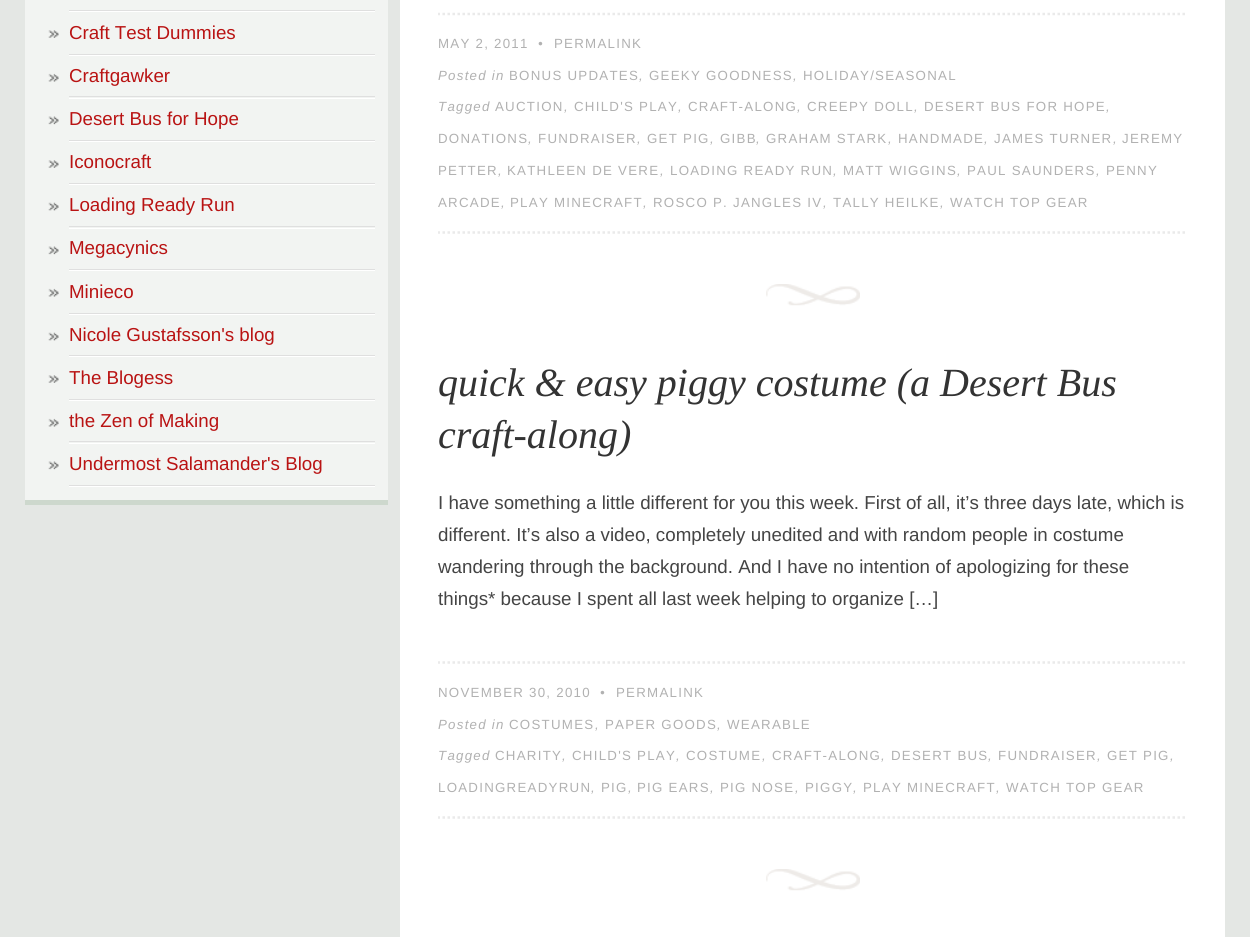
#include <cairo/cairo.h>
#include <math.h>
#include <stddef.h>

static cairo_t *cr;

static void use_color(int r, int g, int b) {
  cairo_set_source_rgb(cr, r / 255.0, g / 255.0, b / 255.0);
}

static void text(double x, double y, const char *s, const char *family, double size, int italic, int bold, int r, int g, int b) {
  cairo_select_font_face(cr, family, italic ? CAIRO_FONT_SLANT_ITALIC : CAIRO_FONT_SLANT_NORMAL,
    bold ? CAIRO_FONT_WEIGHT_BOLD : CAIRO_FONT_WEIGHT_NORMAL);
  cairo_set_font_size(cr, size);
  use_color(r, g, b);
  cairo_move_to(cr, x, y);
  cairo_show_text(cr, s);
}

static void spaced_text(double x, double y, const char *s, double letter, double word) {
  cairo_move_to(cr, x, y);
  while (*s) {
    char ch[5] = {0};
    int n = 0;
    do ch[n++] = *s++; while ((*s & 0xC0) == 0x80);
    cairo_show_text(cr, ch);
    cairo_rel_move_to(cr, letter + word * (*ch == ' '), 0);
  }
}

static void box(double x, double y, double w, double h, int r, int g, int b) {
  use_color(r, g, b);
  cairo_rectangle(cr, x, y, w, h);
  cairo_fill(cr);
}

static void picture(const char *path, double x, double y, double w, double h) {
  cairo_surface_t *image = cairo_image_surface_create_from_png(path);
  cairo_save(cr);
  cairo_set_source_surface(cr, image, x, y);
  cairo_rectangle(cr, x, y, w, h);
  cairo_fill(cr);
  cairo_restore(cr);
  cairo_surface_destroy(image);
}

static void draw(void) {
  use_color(228, 231, 228);
  cairo_paint(cr);
  box(25, 500, 363, 5, 205, 216, 205);
  box(25, 0, 363, 500, 242, 244, 242);
  box(69, 486, 306, 1, 255, 255, 255);
  box(69, 10, 306, 1, 223, 223, 223);
  box(69, 11, 306, 1, 255, 255, 255);
  box(69, 54, 306, 1, 223, 223, 223);
  picture("img_01.png", 48, 30, 11, 8);
  box(69, 55, 306, 1, 255, 255, 255);
  box(69, 96, 306, 1, 223, 223, 223);
  picture("img_02.png", 48, 73, 11, 9);
  box(69, 98, 306, 1, 255, 255, 255);
  box(69, 140, 306, 1, 223, 223, 223);
  picture("img_03.png", 48, 116, 11, 9);
  box(69, 141, 306, 1, 255, 255, 255);
  box(69, 183, 306, 1, 223, 223, 223);
  picture("img_01.png", 48, 160, 11, 8);
  box(69, 184, 306, 1, 255, 255, 255);
  box(69, 226, 306, 1, 223, 223, 223);
  picture("img_04.png", 48, 202, 11, 9);
  box(69, 228, 306, 1, 255, 255, 255);
  box(69, 269, 306, 1, 223, 223, 223);
  picture("img_03.png", 48, 246, 11, 9);
  box(69, 270, 306, 1, 255, 255, 255);
  box(69, 313, 306, 1, 223, 223, 223);
  picture("img_02.png", 48, 288, 11, 9);
  box(69, 314, 306, 1, 255, 255, 255);
  box(69, 355, 306, 1, 223, 223, 223);
  picture("img_04.png", 48, 332, 11, 9);
  box(69, 356, 306, 1, 255, 255, 255);
  box(69, 399, 306, 1, 223, 223, 223);
  picture("img_01.png", 48, 375, 11, 8);
  box(69, 400, 306, 1, 255, 255, 255);
  box(69, 441, 306, 1, 223, 223, 223);
  picture("img_02.png", 48, 418, 11, 9);
  box(69, 443, 306, 1, 255, 255, 255);
  box(69, 485, 306, 1, 223, 223, 223);
  picture("img_03.png", 48, 461, 11, 9);
  box(400, 0, 825, 937, 255, 255, 255);
  cairo_save(cr);
  cairo_rectangle(cr, 438, 0, 750, 234);
  cairo_clip(cr);
  cairo_new_path(cr);
  cairo_move_to(cr, 437.5, 14);
  cairo_line_to(cr, 1187.5, 14);
  use_color(234, 234, 234);
  cairo_set_line_width(cr, 2.5);
  cairo_set_dash(cr, (double[]){2.5, 2.5}, 2, 0);
  cairo_stroke(cr);
  cairo_new_path(cr);
  cairo_move_to(cr, 437.5, 232.5);
  cairo_line_to(cr, 1187.5, 232.5);
  cairo_stroke(cr);
  cairo_restore(cr);
  picture("img_05.png", 766, 284, 94, 22);
  cairo_save(cr);
  cairo_rectangle(cr, 438, 355, 750, 464);
  cairo_clip(cr);
  cairo_new_path(cr);
  cairo_move_to(cr, 437.5, 662.5);
  cairo_line_to(cr, 1187.5, 662.5);
  use_color(234, 234, 234);
  cairo_set_line_width(cr, 2.5);
  cairo_set_dash(cr, (double[]){2.5, 2.5}, 2, 0);
  cairo_stroke(cr);
  cairo_new_path(cr);
  cairo_move_to(cr, 437.5, 817.5);
  cairo_line_to(cr, 1187.5, 817.5);
  cairo_stroke(cr);
  cairo_restore(cr);
  picture("img_05.png", 766, 869, 94, 22);
  text(69, 39, "Craft Test Dummies", "Liberation Sans", 18.75, 0, 0, 185, 19, 19);
  text(69, 82, "Craftgawker", "Liberation Sans", 18.75, 0, 0, 185, 19, 19);
  text(69, 125, "Desert Bus for Hope", "Liberation Sans", 18.75, 0, 0, 185, 19, 19);
  text(69, 168, "Iconocraft", "Liberation Sans", 18.75, 0, 0, 185, 19, 19);
  text(69, 211, "Loading Ready Run", "Liberation Sans", 18.75, 0, 0, 185, 19, 19);
  text(69, 254, "Megacynics", "Liberation Sans", 18.75, 0, 0, 185, 19, 19);
  text(69, 298, "Minieco", "Liberation Sans", 18.75, 0, 0, 185, 19, 19);
  text(69, 341, "Nicole Gustafsson's blog", "Liberation Sans", 18.75, 0, 0, 185, 19, 19);
  text(69, 384, "The Blogess", "Liberation Sans", 18.75, 0, 0, 185, 19, 19);
  text(69, 427, "the Zen of Making", "Liberation Sans", 18.75, 0, 0, 185, 19, 19);
  text(69, 470, "Undermost Salamander's Blog", "Liberation Sans", 18.75, 0, 0, 185, 19, 19);
  cairo_set_font_size(cr, 13.3);
  use_color(177, 177, 177);
  spaced_text(438, 48, "MAY 2, 2011", 1.25, 0);
  cairo_select_font_face(cr, "Liberation Sans", CAIRO_FONT_SLANT_ITALIC, CAIRO_FONT_WEIGHT_NORMAL);
  spaced_text(538, 48, "•", 1.25, 0);
  cairo_select_font_face(cr, "Liberation Sans", CAIRO_FONT_SLANT_NORMAL, CAIRO_FONT_WEIGHT_NORMAL);
  spaced_text(554, 48, "PERMALINK", 1.25, 0);
  cairo_select_font_face(cr, "Liberation Sans", CAIRO_FONT_SLANT_ITALIC, CAIRO_FONT_WEIGHT_NORMAL);
  spaced_text(438, 80, "Posted in", 1.25, 0);
  cairo_select_font_face(cr, "Liberation Sans", CAIRO_FONT_SLANT_NORMAL, CAIRO_FONT_WEIGHT_NORMAL);
  spaced_text(509, 80, "BONUS UPDATES", 1.25, 0);
  cairo_select_font_face(cr, "Liberation Sans", CAIRO_FONT_SLANT_ITALIC, CAIRO_FONT_WEIGHT_NORMAL);
  spaced_text(639, 80, ",", 1.25, 0);
  cairo_select_font_face(cr, "Liberation Sans", CAIRO_FONT_SLANT_NORMAL, CAIRO_FONT_WEIGHT_NORMAL);
  spaced_text(649, 80, "GEEKY GOODNESS", 1.25, 0);
  cairo_select_font_face(cr, "Liberation Sans", CAIRO_FONT_SLANT_ITALIC, CAIRO_FONT_WEIGHT_NORMAL);
  spaced_text(793, 80, ",", 1.25, 0);
  cairo_select_font_face(cr, "Liberation Sans", CAIRO_FONT_SLANT_NORMAL, CAIRO_FONT_WEIGHT_NORMAL);
  spaced_text(803, 80, "HOLIDAY/SEASONAL", 1.25, 0);
  cairo_select_font_face(cr, "Liberation Sans", CAIRO_FONT_SLANT_ITALIC, CAIRO_FONT_WEIGHT_NORMAL);
  spaced_text(438, 111, "Tagged", 1.25, 0);
  cairo_select_font_face(cr, "Liberation Sans", CAIRO_FONT_SLANT_NORMAL, CAIRO_FONT_WEIGHT_NORMAL);
  spaced_text(495, 111, "AUCTION", 1.25, 0);
  cairo_select_font_face(cr, "Liberation Sans", CAIRO_FONT_SLANT_ITALIC, CAIRO_FONT_WEIGHT_NORMAL);
  spaced_text(564, 111, ",", 1.25, 0);
  cairo_select_font_face(cr, "Liberation Sans", CAIRO_FONT_SLANT_NORMAL, CAIRO_FONT_WEIGHT_NORMAL);
  spaced_text(574, 111, "CHILD'S PLAY", 1.25, 0);
  cairo_select_font_face(cr, "Liberation Sans", CAIRO_FONT_SLANT_ITALIC, CAIRO_FONT_WEIGHT_NORMAL);
  spaced_text(678, 111, ",", 1.25, 0);
  cairo_select_font_face(cr, "Liberation Sans", CAIRO_FONT_SLANT_NORMAL, CAIRO_FONT_WEIGHT_NORMAL);
  spaced_text(688, 111, "CRAFT-ALONG", 1.25, 0);
  cairo_select_font_face(cr, "Liberation Sans", CAIRO_FONT_SLANT_ITALIC, CAIRO_FONT_WEIGHT_NORMAL);
  spaced_text(797, 111, ",", 1.25, 0);
  cairo_select_font_face(cr, "Liberation Sans", CAIRO_FONT_SLANT_NORMAL, CAIRO_FONT_WEIGHT_NORMAL);
  spaced_text(807, 111, "CREEPY DOLL", 1.25, 0);
  cairo_select_font_face(cr, "Liberation Sans", CAIRO_FONT_SLANT_ITALIC, CAIRO_FONT_WEIGHT_NORMAL);
  spaced_text(914, 111, ",", 1.25, 0);
  cairo_select_font_face(cr, "Liberation Sans", CAIRO_FONT_SLANT_NORMAL, CAIRO_FONT_WEIGHT_NORMAL);
  spaced_text(924, 111, "DESERT BUS FOR HOPE", 1.25, 0);
  cairo_select_font_face(cr, "Liberation Sans", CAIRO_FONT_SLANT_ITALIC, CAIRO_FONT_WEIGHT_NORMAL);
  spaced_text(1106, 111, ",", 1.25, 0);
  cairo_select_font_face(cr, "Liberation Sans", CAIRO_FONT_SLANT_NORMAL, CAIRO_FONT_WEIGHT_NORMAL);
  spaced_text(438, 143, "DONATIONS", 1.25, 0);
  cairo_select_font_face(cr, "Liberation Sans", CAIRO_FONT_SLANT_ITALIC, CAIRO_FONT_WEIGHT_NORMAL);
  spaced_text(528, 143, ",", 1.25, 0);
  cairo_select_font_face(cr, "Liberation Sans", CAIRO_FONT_SLANT_NORMAL, CAIRO_FONT_WEIGHT_NORMAL);
  spaced_text(538, 143, "FUNDRAISER", 1.25, 0);
  cairo_select_font_face(cr, "Liberation Sans", CAIRO_FONT_SLANT_ITALIC, CAIRO_FONT_WEIGHT_NORMAL);
  spaced_text(637, 143, ",", 1.25, 0);
  cairo_select_font_face(cr, "Liberation Sans", CAIRO_FONT_SLANT_NORMAL, CAIRO_FONT_WEIGHT_NORMAL);
  spaced_text(647, 143, "GET PIG", 1.25, 0);
  cairo_select_font_face(cr, "Liberation Sans", CAIRO_FONT_SLANT_ITALIC, CAIRO_FONT_WEIGHT_NORMAL);
  spaced_text(710, 143, ",", 1.25, 0);
  cairo_select_font_face(cr, "Liberation Sans", CAIRO_FONT_SLANT_NORMAL, CAIRO_FONT_WEIGHT_NORMAL);
  spaced_text(720, 143, "GIBB", 1.25, 0);
  cairo_select_font_face(cr, "Liberation Sans", CAIRO_FONT_SLANT_ITALIC, CAIRO_FONT_WEIGHT_NORMAL);
  spaced_text(756, 143, ",", 1.25, 0);
  cairo_select_font_face(cr, "Liberation Sans", CAIRO_FONT_SLANT_NORMAL, CAIRO_FONT_WEIGHT_NORMAL);
  spaced_text(766, 143, "GRAHAM STARK", 1.25, 0);
  cairo_select_font_face(cr, "Liberation Sans", CAIRO_FONT_SLANT_ITALIC, CAIRO_FONT_WEIGHT_NORMAL);
  spaced_text(888, 143, ",", 1.25, 0);
  cairo_select_font_face(cr, "Liberation Sans", CAIRO_FONT_SLANT_NORMAL, CAIRO_FONT_WEIGHT_NORMAL);
  spaced_text(898, 143, "HANDMADE", 1.25, 0);
  cairo_select_font_face(cr, "Liberation Sans", CAIRO_FONT_SLANT_ITALIC, CAIRO_FONT_WEIGHT_NORMAL);
  spaced_text(984, 143, ",", 1.25, 0);
  cairo_select_font_face(cr, "Liberation Sans", CAIRO_FONT_SLANT_NORMAL, CAIRO_FONT_WEIGHT_NORMAL);
  spaced_text(994, 143, "JAMES TURNER", 1.25, 0);
  cairo_select_font_face(cr, "Liberation Sans", CAIRO_FONT_SLANT_ITALIC, CAIRO_FONT_WEIGHT_NORMAL);
  spaced_text(1113, 143, ",", 1.25, 0);
  cairo_select_font_face(cr, "Liberation Sans", CAIRO_FONT_SLANT_NORMAL, CAIRO_FONT_WEIGHT_NORMAL);
  spaced_text(1122, 143, "JEREMY", 1.25, 0);
  spaced_text(438, 175, "PETTER", 1.25, 0);
  cairo_select_font_face(cr, "Liberation Sans", CAIRO_FONT_SLANT_ITALIC, CAIRO_FONT_WEIGHT_NORMAL);
  spaced_text(498, 175, ",", 1.25, 0);
  cairo_select_font_face(cr, "Liberation Sans", CAIRO_FONT_SLANT_NORMAL, CAIRO_FONT_WEIGHT_NORMAL);
  spaced_text(507, 175, "KATHLEEN DE VERE", 1.25, 0);
  cairo_select_font_face(cr, "Liberation Sans", CAIRO_FONT_SLANT_ITALIC, CAIRO_FONT_WEIGHT_NORMAL);
  spaced_text(660, 175, ",", 1.25, 0);
  cairo_select_font_face(cr, "Liberation Sans", CAIRO_FONT_SLANT_NORMAL, CAIRO_FONT_WEIGHT_NORMAL);
  spaced_text(670, 175, "LOADING READY RUN", 1.25, 0);
  cairo_select_font_face(cr, "Liberation Sans", CAIRO_FONT_SLANT_ITALIC, CAIRO_FONT_WEIGHT_NORMAL);
  spaced_text(833, 175, ",", 1.25, 0);
  cairo_select_font_face(cr, "Liberation Sans", CAIRO_FONT_SLANT_NORMAL, CAIRO_FONT_WEIGHT_NORMAL);
  spaced_text(843, 175, "MATT WIGGINS", 1.25, 0);
  cairo_select_font_face(cr, "Liberation Sans", CAIRO_FONT_SLANT_ITALIC, CAIRO_FONT_WEIGHT_NORMAL);
  spaced_text(957, 175, ",", 1.25, 0);
  cairo_select_font_face(cr, "Liberation Sans", CAIRO_FONT_SLANT_NORMAL, CAIRO_FONT_WEIGHT_NORMAL);
  spaced_text(967, 175, "PAUL SAUNDERS", 1.25, 0);
  cairo_select_font_face(cr, "Liberation Sans", CAIRO_FONT_SLANT_ITALIC, CAIRO_FONT_WEIGHT_NORMAL);
  spaced_text(1096, 175, ",", 1.25, 0);
  cairo_select_font_face(cr, "Liberation Sans", CAIRO_FONT_SLANT_NORMAL, CAIRO_FONT_WEIGHT_NORMAL);
  spaced_text(1106, 175, "PENNY", 1.25, 0);
  spaced_text(438, 207, "ARCADE", 1.25, 0);
  cairo_select_font_face(cr, "Liberation Sans", CAIRO_FONT_SLANT_ITALIC, CAIRO_FONT_WEIGHT_NORMAL);
  spaced_text(501, 207, ",", 1.25, 0);
  cairo_select_font_face(cr, "Liberation Sans", CAIRO_FONT_SLANT_NORMAL, CAIRO_FONT_WEIGHT_NORMAL);
  spaced_text(510, 207, "PLAY MINECRAFT", 1.25, 0);
  cairo_select_font_face(cr, "Liberation Sans", CAIRO_FONT_SLANT_ITALIC, CAIRO_FONT_WEIGHT_NORMAL);
  spaced_text(643, 207, ",", 1.25, 0);
  cairo_select_font_face(cr, "Liberation Sans", CAIRO_FONT_SLANT_NORMAL, CAIRO_FONT_WEIGHT_NORMAL);
  spaced_text(653, 207, "ROSCO P. JANGLES IV", 1.25, 0);
  cairo_select_font_face(cr, "Liberation Sans", CAIRO_FONT_SLANT_ITALIC, CAIRO_FONT_WEIGHT_NORMAL);
  spaced_text(823, 207, ",", 1.25, 0);
  cairo_select_font_face(cr, "Liberation Sans", CAIRO_FONT_SLANT_NORMAL, CAIRO_FONT_WEIGHT_NORMAL);
  spaced_text(833, 207, "TALLY HEILKE", 1.25, 0);
  cairo_select_font_face(cr, "Liberation Sans", CAIRO_FONT_SLANT_ITALIC, CAIRO_FONT_WEIGHT_NORMAL);
  spaced_text(940, 207, ",", 1.25, 0);
  cairo_select_font_face(cr, "Liberation Sans", CAIRO_FONT_SLANT_NORMAL, CAIRO_FONT_WEIGHT_NORMAL);
  spaced_text(950, 207, "WATCH TOP GEAR", 1.25, 0);
  text(438, 396, "quick & easy piggy costume (a Desert Bus", "Liberation Serif", 40, 1, 0, 51, 51, 51);
  text(438, 448, "craft-along)", "Liberation Serif", 40, 1, 0, 51, 51, 51);
  text(438, 509, "I have something a little different for you this week. First of all, it’s three days late, which is", "Liberation Sans", 18.75, 0, 0, 68, 68, 68);
  text(438, 541, "different. It’s also a video, completely unedited and with random people in costume", "Liberation Sans", 18.75, 0, 0, 68, 68, 68);
  text(438, 573, "wandering through the background. And I have no intention of apologizing for these", "Liberation Sans", 18.75, 0, 0, 68, 68, 68);
  text(438, 605, "things* because I spent all last week helping to organize […]", "Liberation Sans", 18.75, 0, 0, 68, 68, 68);
  cairo_set_font_size(cr, 13.3);
  use_color(177, 177, 177);
  spaced_text(438, 697, "NOVEMBER 30, 2010", 1.25, 0);
  cairo_select_font_face(cr, "Liberation Sans", CAIRO_FONT_SLANT_ITALIC, CAIRO_FONT_WEIGHT_NORMAL);
  spaced_text(600, 697, "•", 1.25, 0);
  cairo_select_font_face(cr, "Liberation Sans", CAIRO_FONT_SLANT_NORMAL, CAIRO_FONT_WEIGHT_NORMAL);
  spaced_text(616, 697, "PERMALINK", 1.25, 0);
  cairo_select_font_face(cr, "Liberation Sans", CAIRO_FONT_SLANT_ITALIC, CAIRO_FONT_WEIGHT_NORMAL);
  spaced_text(438, 729, "Posted in", 1.25, 0);
  cairo_select_font_face(cr, "Liberation Sans", CAIRO_FONT_SLANT_NORMAL, CAIRO_FONT_WEIGHT_NORMAL);
  spaced_text(509, 729, "COSTUMES", 1.25, 0);
  cairo_select_font_face(cr, "Liberation Sans", CAIRO_FONT_SLANT_ITALIC, CAIRO_FONT_WEIGHT_NORMAL);
  spaced_text(595, 729, ",", 1.25, 0);
  cairo_select_font_face(cr, "Liberation Sans", CAIRO_FONT_SLANT_NORMAL, CAIRO_FONT_WEIGHT_NORMAL);
  spaced_text(605, 729, "PAPER GOODS", 1.25, 0);
  cairo_select_font_face(cr, "Liberation Sans", CAIRO_FONT_SLANT_ITALIC, CAIRO_FONT_WEIGHT_NORMAL);
  spaced_text(717, 729, ",", 1.25, 0);
  cairo_select_font_face(cr, "Liberation Sans", CAIRO_FONT_SLANT_NORMAL, CAIRO_FONT_WEIGHT_NORMAL);
  spaced_text(727, 729, "WEARABLE", 1.25, 0);
  cairo_select_font_face(cr, "Liberation Sans", CAIRO_FONT_SLANT_ITALIC, CAIRO_FONT_WEIGHT_NORMAL);
  spaced_text(438, 760, "Tagged", 1.25, 0);
  cairo_select_font_face(cr, "Liberation Sans", CAIRO_FONT_SLANT_NORMAL, CAIRO_FONT_WEIGHT_NORMAL);
  spaced_text(495, 760, "CHARITY", 1.25, 0);
  cairo_select_font_face(cr, "Liberation Sans", CAIRO_FONT_SLANT_ITALIC, CAIRO_FONT_WEIGHT_NORMAL);
  spaced_text(562, 760, ",", 1.25, 0);
  cairo_select_font_face(cr, "Liberation Sans", CAIRO_FONT_SLANT_NORMAL, CAIRO_FONT_WEIGHT_NORMAL);
  spaced_text(572, 760, "CHILD'S PLAY", 1.25, 0);
  cairo_select_font_face(cr, "Liberation Sans", CAIRO_FONT_SLANT_ITALIC, CAIRO_FONT_WEIGHT_NORMAL);
  spaced_text(676, 760, ",", 1.25, 0);
  cairo_select_font_face(cr, "Liberation Sans", CAIRO_FONT_SLANT_NORMAL, CAIRO_FONT_WEIGHT_NORMAL);
  spaced_text(686, 760, "COSTUME", 1.25, 0);
  cairo_select_font_face(cr, "Liberation Sans", CAIRO_FONT_SLANT_ITALIC, CAIRO_FONT_WEIGHT_NORMAL);
  spaced_text(762, 760, ",", 1.25, 0);
  cairo_select_font_face(cr, "Liberation Sans", CAIRO_FONT_SLANT_NORMAL, CAIRO_FONT_WEIGHT_NORMAL);
  spaced_text(772, 760, "CRAFT-ALONG", 1.25, 0);
  cairo_select_font_face(cr, "Liberation Sans", CAIRO_FONT_SLANT_ITALIC, CAIRO_FONT_WEIGHT_NORMAL);
  spaced_text(881, 760, ",", 1.25, 0);
  cairo_select_font_face(cr, "Liberation Sans", CAIRO_FONT_SLANT_NORMAL, CAIRO_FONT_WEIGHT_NORMAL);
  spaced_text(891, 760, "DESERT BUS", 1.25, 0);
  cairo_select_font_face(cr, "Liberation Sans", CAIRO_FONT_SLANT_ITALIC, CAIRO_FONT_WEIGHT_NORMAL);
  spaced_text(988, 760, ",", 1.25, 0);
  cairo_select_font_face(cr, "Liberation Sans", CAIRO_FONT_SLANT_NORMAL, CAIRO_FONT_WEIGHT_NORMAL);
  spaced_text(998, 760, "FUNDRAISER", 1.25, 0);
  cairo_select_font_face(cr, "Liberation Sans", CAIRO_FONT_SLANT_ITALIC, CAIRO_FONT_WEIGHT_NORMAL);
  spaced_text(1097, 760, ",", 1.25, 0);
  cairo_select_font_face(cr, "Liberation Sans", CAIRO_FONT_SLANT_NORMAL, CAIRO_FONT_WEIGHT_NORMAL);
  spaced_text(1107, 760, "GET PIG", 1.25, 0);
  cairo_select_font_face(cr, "Liberation Sans", CAIRO_FONT_SLANT_ITALIC, CAIRO_FONT_WEIGHT_NORMAL);
  spaced_text(1170, 760, ",", 1.25, 0);
  cairo_select_font_face(cr, "Liberation Sans", CAIRO_FONT_SLANT_NORMAL, CAIRO_FONT_WEIGHT_NORMAL);
  spaced_text(438, 792, "LOADINGREADYRUN", 1.25, 0);
  cairo_select_font_face(cr, "Liberation Sans", CAIRO_FONT_SLANT_ITALIC, CAIRO_FONT_WEIGHT_NORMAL);
  spaced_text(591, 792, ",", 1.25, 0);
  cairo_select_font_face(cr, "Liberation Sans", CAIRO_FONT_SLANT_NORMAL, CAIRO_FONT_WEIGHT_NORMAL);
  spaced_text(601, 792, "PIG", 1.25, 0);
  cairo_select_font_face(cr, "Liberation Sans", CAIRO_FONT_SLANT_ITALIC, CAIRO_FONT_WEIGHT_NORMAL);
  spaced_text(628, 792, ",", 1.25, 0);
  cairo_select_font_face(cr, "Liberation Sans", CAIRO_FONT_SLANT_NORMAL, CAIRO_FONT_WEIGHT_NORMAL);
  spaced_text(637, 792, "PIG EARS", 1.25, 0);
  cairo_select_font_face(cr, "Liberation Sans", CAIRO_FONT_SLANT_ITALIC, CAIRO_FONT_WEIGHT_NORMAL);
  spaced_text(710, 792, ",", 1.25, 0);
  cairo_select_font_face(cr, "Liberation Sans", CAIRO_FONT_SLANT_NORMAL, CAIRO_FONT_WEIGHT_NORMAL);
  spaced_text(720, 792, "PIG NOSE", 1.25, 0);
  cairo_select_font_face(cr, "Liberation Sans", CAIRO_FONT_SLANT_ITALIC, CAIRO_FONT_WEIGHT_NORMAL);
  spaced_text(795, 792, ",", 1.25, 0);
  cairo_select_font_face(cr, "Liberation Sans", CAIRO_FONT_SLANT_NORMAL, CAIRO_FONT_WEIGHT_NORMAL);
  spaced_text(805, 792, "PIGGY", 1.25, 0);
  cairo_select_font_face(cr, "Liberation Sans", CAIRO_FONT_SLANT_ITALIC, CAIRO_FONT_WEIGHT_NORMAL);
  spaced_text(853, 792, ",", 1.25, 0);
  cairo_select_font_face(cr, "Liberation Sans", CAIRO_FONT_SLANT_NORMAL, CAIRO_FONT_WEIGHT_NORMAL);
  spaced_text(863, 792, "PLAY MINECRAFT", 1.25, 0);
  cairo_select_font_face(cr, "Liberation Sans", CAIRO_FONT_SLANT_ITALIC, CAIRO_FONT_WEIGHT_NORMAL);
  spaced_text(996, 792, ",", 1.25, 0);
  cairo_select_font_face(cr, "Liberation Sans", CAIRO_FONT_SLANT_NORMAL, CAIRO_FONT_WEIGHT_NORMAL);
  spaced_text(1006, 792, "WATCH TOP GEAR", 1.25, 0);
}

int main(void) {
  cairo_surface_t *surface = cairo_image_surface_create(CAIRO_FORMAT_RGB24, 1250, 937);
  cr = cairo_create(surface);
  cairo_font_options_t *options = cairo_font_options_create();
  cairo_font_options_set_hint_metrics(options, CAIRO_HINT_METRICS_OFF);
  cairo_font_options_set_hint_style(options, CAIRO_HINT_STYLE_NONE);
  cairo_set_font_options(cr, options);
  cairo_set_miter_limit(cr, 4);
  draw();
  cairo_surface_write_to_png(surface, "out.png");
  cairo_font_options_destroy(options);
  cairo_destroy(cr);
  cairo_surface_destroy(surface);
  return 0;
}
